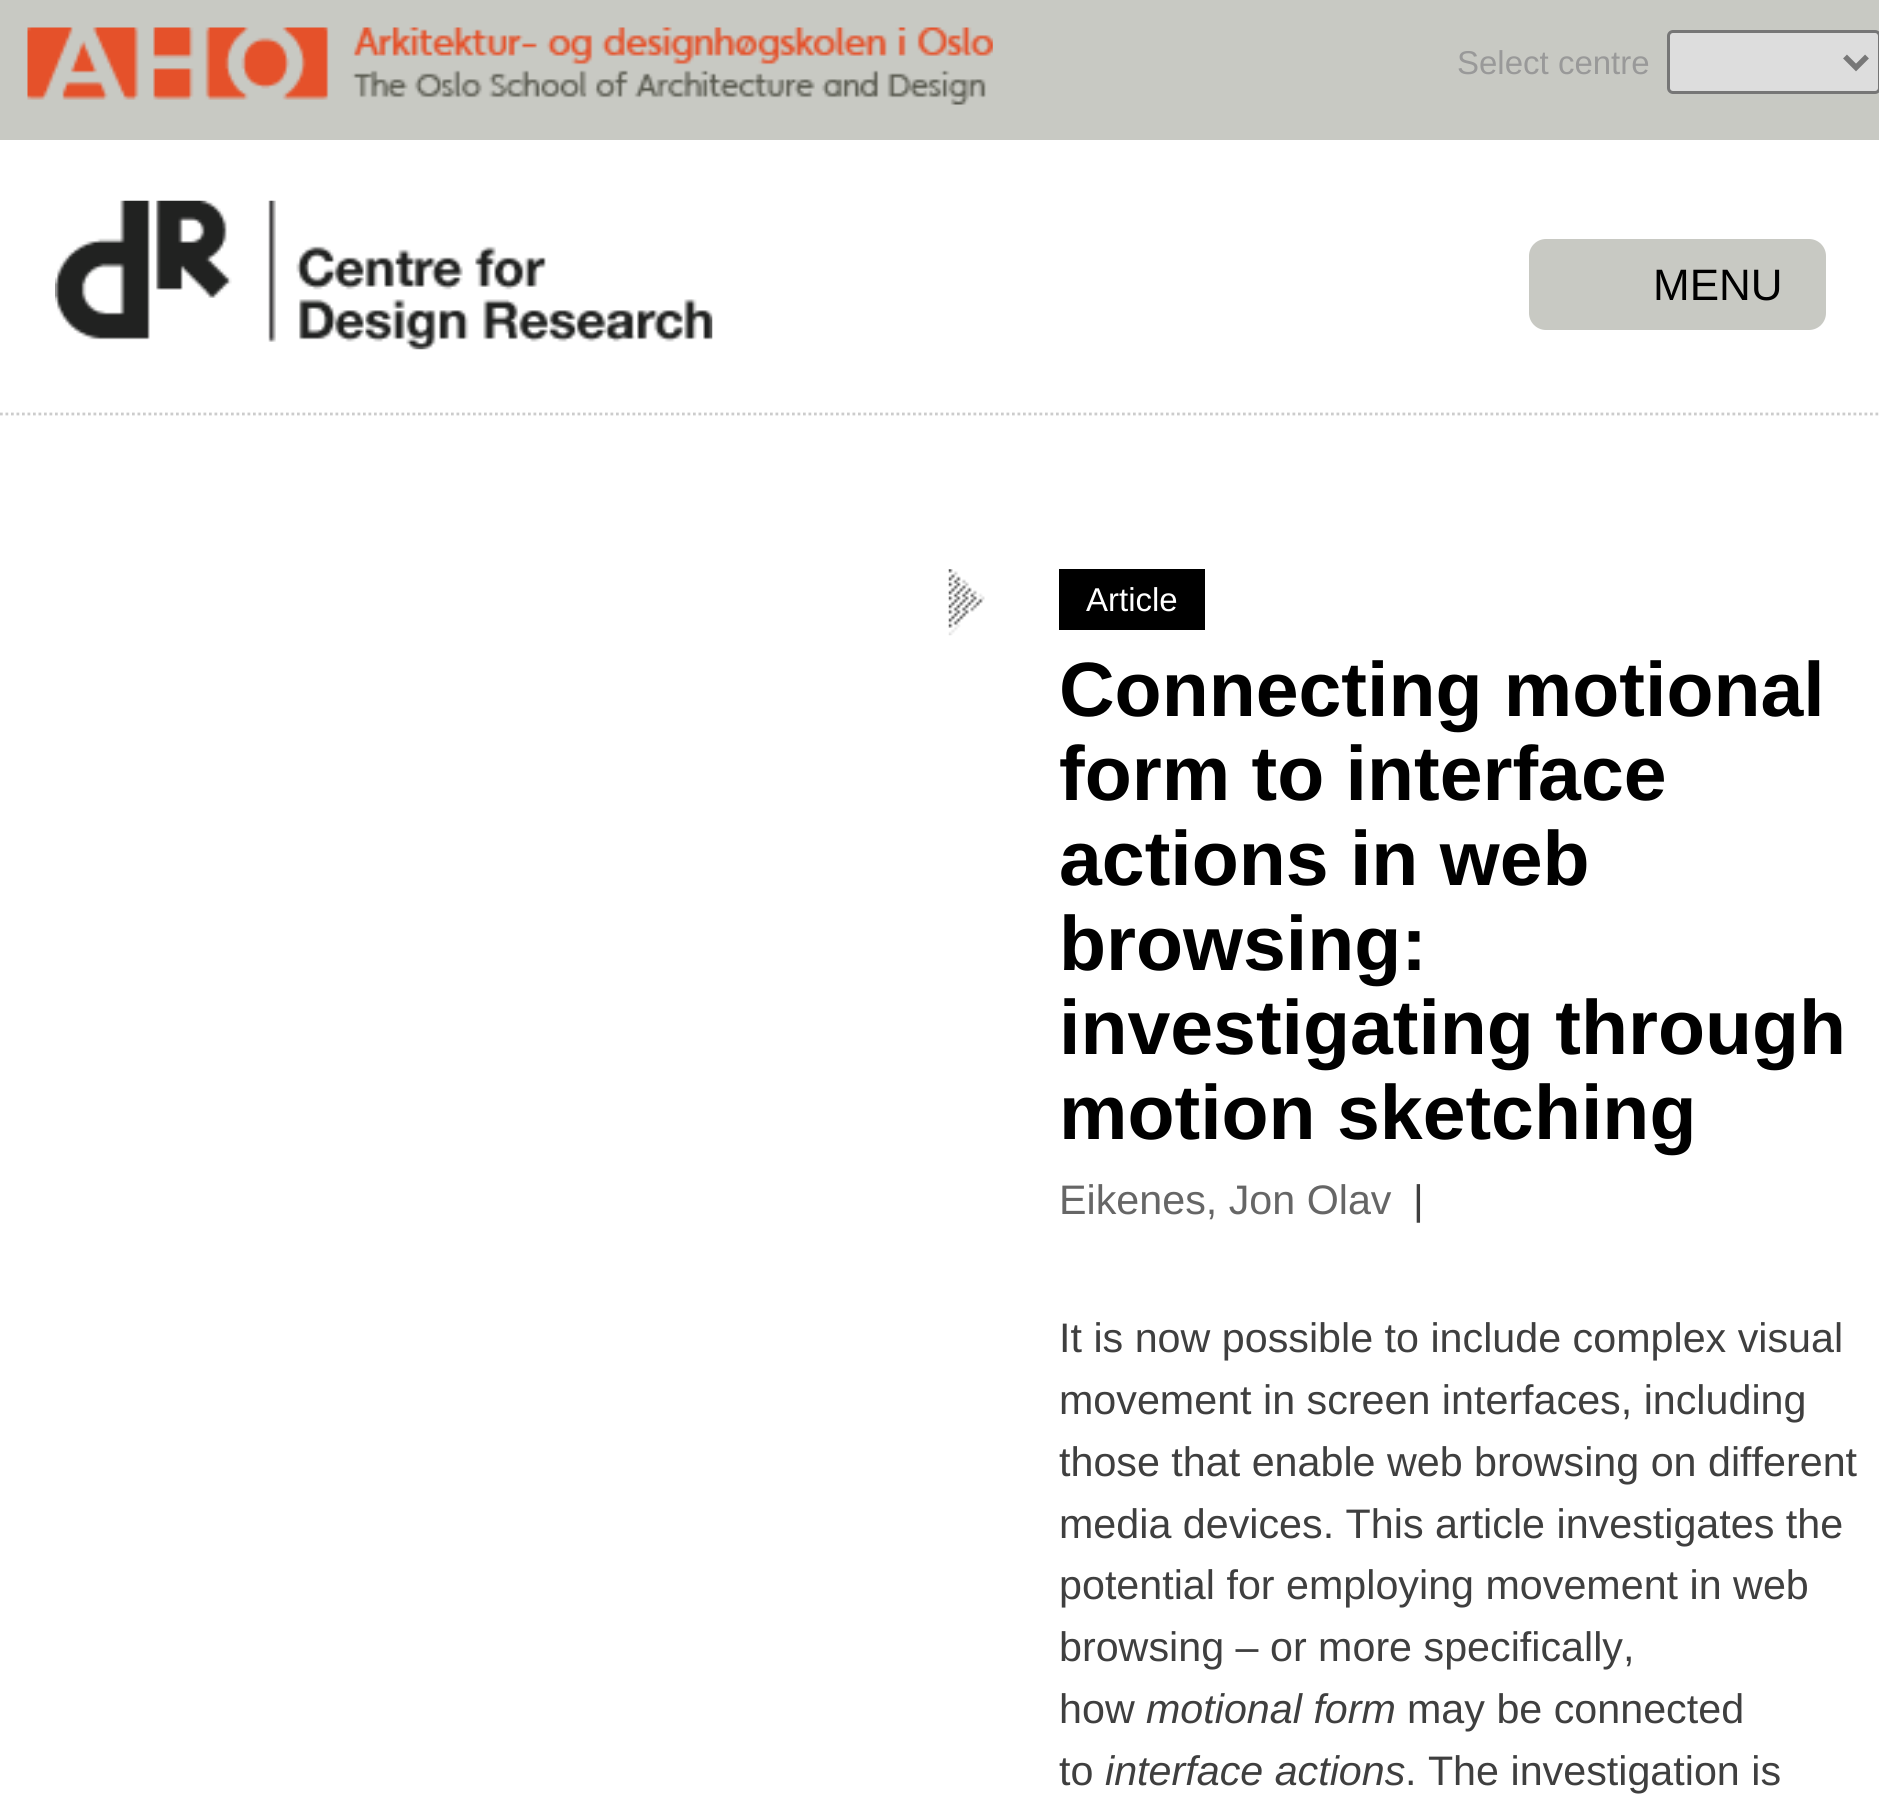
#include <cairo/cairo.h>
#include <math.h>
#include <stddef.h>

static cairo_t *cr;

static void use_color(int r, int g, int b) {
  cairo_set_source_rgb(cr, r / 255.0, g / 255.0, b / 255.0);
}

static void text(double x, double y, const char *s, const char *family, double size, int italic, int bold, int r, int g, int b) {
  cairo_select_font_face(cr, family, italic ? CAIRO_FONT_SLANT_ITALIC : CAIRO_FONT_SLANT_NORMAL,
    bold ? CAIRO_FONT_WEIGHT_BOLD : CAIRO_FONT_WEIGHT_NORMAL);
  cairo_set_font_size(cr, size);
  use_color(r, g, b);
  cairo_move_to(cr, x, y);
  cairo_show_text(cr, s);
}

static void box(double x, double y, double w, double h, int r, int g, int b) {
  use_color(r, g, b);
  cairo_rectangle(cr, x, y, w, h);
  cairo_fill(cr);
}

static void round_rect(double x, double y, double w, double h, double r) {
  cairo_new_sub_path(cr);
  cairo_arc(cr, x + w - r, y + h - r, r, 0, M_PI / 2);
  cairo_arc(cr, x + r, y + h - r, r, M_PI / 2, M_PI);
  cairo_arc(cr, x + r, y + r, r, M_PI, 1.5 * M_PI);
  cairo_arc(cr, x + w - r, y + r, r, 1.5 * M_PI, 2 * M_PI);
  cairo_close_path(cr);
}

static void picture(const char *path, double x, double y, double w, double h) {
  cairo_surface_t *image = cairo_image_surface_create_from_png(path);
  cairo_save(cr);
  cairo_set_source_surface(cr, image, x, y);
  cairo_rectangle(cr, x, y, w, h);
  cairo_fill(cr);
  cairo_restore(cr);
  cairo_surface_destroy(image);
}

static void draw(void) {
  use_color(255, 255, 255);
  cairo_paint(cr);
  box(0, 0, 1879, 140, 200, 201, 195);
  picture("img_01.png", 27, 27, 966, 78);
  use_color(221, 221, 221);
  round_rect(1668.5, 31.5, 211, 61, 4.5);
  cairo_fill_preserve(cr);
  use_color(118, 118, 118);
  cairo_set_line_width(cr, 3);
  cairo_stroke(cr);
  cairo_new_path(cr);
  cairo_move_to(cr, 1845, 56.5);
  cairo_line_to(cr, 1856, 67.5);
  cairo_line_to(cr, 1867, 56.5);
  use_color(119, 119, 119);
  cairo_set_line_width(cr, 5.5);
  cairo_stroke(cr);
  cairo_new_path(cr);
  cairo_move_to(cr, 0, 414);
  cairo_line_to(cr, 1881, 414);
  use_color(204, 204, 204);
  cairo_set_line_width(cr, 2.8);
  cairo_set_dash(cr, (double[]){2.75, 2.75}, 2, 0);
  cairo_stroke(cr);
  picture("img_02.png", 55, 200, 658, 150);
  use_color(200, 201, 195);
  round_rect(1529, 239, 297, 91, 17);
  cairo_fill(cr);
  picture("img_03.png", 948, 569, 37, 67);
  box(1059, 569, 146, 61, 0, 0, 0);
  text(1457, 74, "Select centre", "Liberation Sans", 33, 0, 0, 153, 153, 153);
  text(1653, 300, "MENU", "Liberation Sans", 44, 0, 0, 0, 0, 0);
  text(1086, 611, "Article", "Liberation Sans", 33, 0, 0, 255, 255, 255);
  text(1059, 716, "Connecting motional", "Liberation Sans", 77, 0, 1, 0, 0, 0);
  text(1059, 800, "form to interface", "Liberation Sans", 77, 0, 1, 0, 0, 0);
  text(1059, 885, "actions in web", "Liberation Sans", 77, 0, 1, 0, 0, 0);
  text(1059, 970, "browsing:", "Liberation Sans", 77, 0, 1, 0, 0, 0);
  text(1059, 1054, "investigating through", "Liberation Sans", 77, 0, 1, 0, 0, 0);
  text(1059, 1139, "motion sketching", "Liberation Sans", 77, 0, 1, 0, 0, 0);
  text(1059, 1214, "Eikenes, Jon Olav", "Liberation Sans", 41.25, 0, 0, 102, 102, 102);
  text(1413, 1214, "|", "Liberation Sans", 41.25, 0, 0, 63, 63, 63);
  text(1059, 1352, "It is now possible to include complex visual", "Liberation Sans", 41.25, 0, 0, 63, 63, 63);
  text(1059, 1414, "movement in screen interfaces, including", "Liberation Sans", 41.25, 0, 0, 63, 63, 63);
  text(1059, 1476, "those that enable web browsing on different", "Liberation Sans", 41.25, 0, 0, 63, 63, 63);
  text(1059, 1538, "media devices. This article investigates the", "Liberation Sans", 41.25, 0, 0, 63, 63, 63);
  text(1059, 1599, "potential for employing movement in web", "Liberation Sans", 41.25, 0, 0, 63, 63, 63);
  text(1059, 1661, "browsing – or more specifically,", "Liberation Sans", 41.25, 0, 0, 63, 63, 63);
  text(1059, 1723, "how", "Liberation Sans", 41.25, 0, 0, 63, 63, 63);
  text(1146, 1723, "motional form", "Liberation Sans", 41.25, 1, 0, 63, 63, 63);
  text(1407, 1723, "may be connected", "Liberation Sans", 41.25, 0, 0, 63, 63, 63);
  text(1059, 1785, "to", "Liberation Sans", 41.25, 0, 0, 63, 63, 63);
  text(1105, 1785, "interface actions", "Liberation Sans", 41.25, 1, 0, 63, 63, 63);
  text(1405, 1785, ". The investigation is", "Liberation Sans", 41.25, 0, 0, 63, 63, 63);
}

int main(void) {
  cairo_surface_t *surface = cairo_image_surface_create(CAIRO_FORMAT_RGB24, 1879, 1800);
  cr = cairo_create(surface);
  cairo_font_options_t *options = cairo_font_options_create();
  cairo_font_options_set_hint_metrics(options, CAIRO_HINT_METRICS_OFF);
  cairo_font_options_set_hint_style(options, CAIRO_HINT_STYLE_NONE);
  cairo_set_font_options(cr, options);
  cairo_set_miter_limit(cr, 4);
  draw();
  cairo_surface_write_to_png(surface, "out.png");
  cairo_font_options_destroy(options);
  cairo_destroy(cr);
  cairo_surface_destroy(surface);
  return 0;
}
